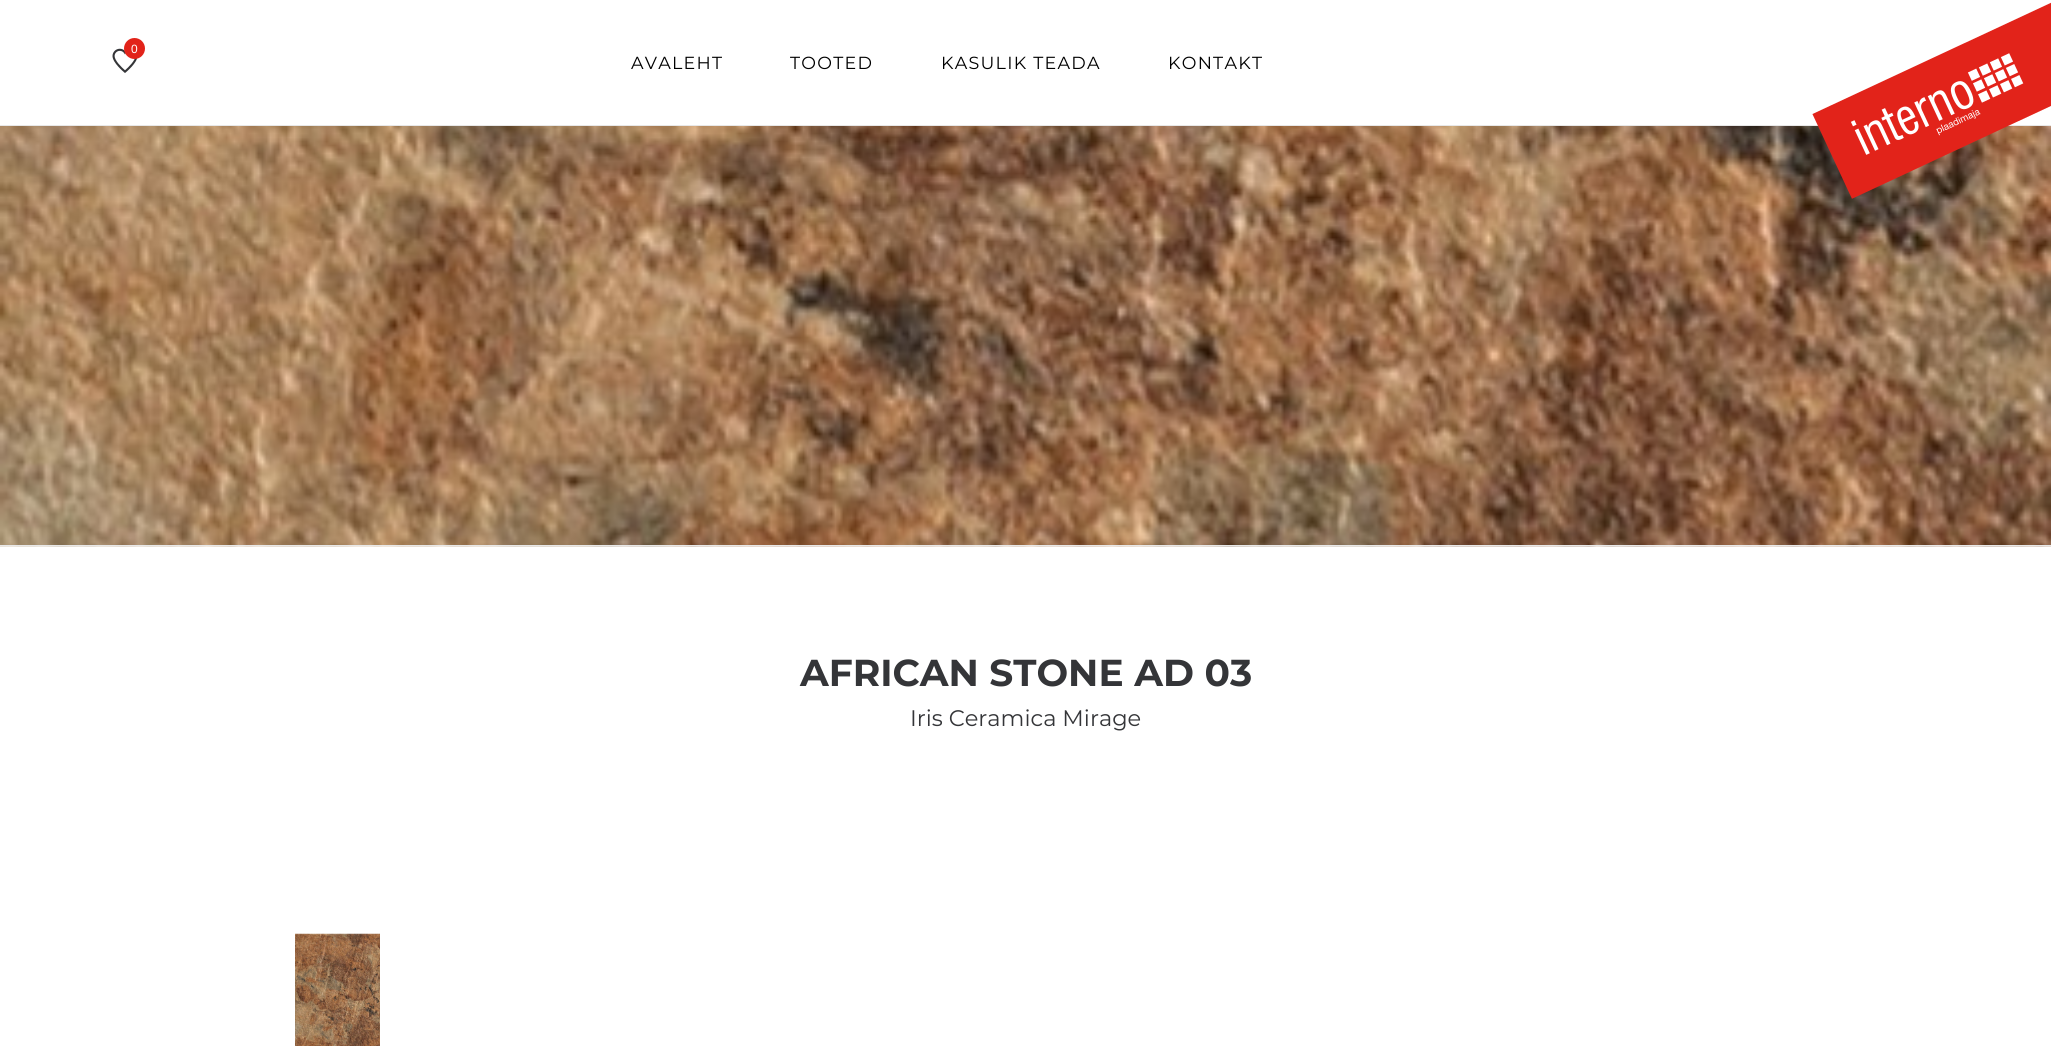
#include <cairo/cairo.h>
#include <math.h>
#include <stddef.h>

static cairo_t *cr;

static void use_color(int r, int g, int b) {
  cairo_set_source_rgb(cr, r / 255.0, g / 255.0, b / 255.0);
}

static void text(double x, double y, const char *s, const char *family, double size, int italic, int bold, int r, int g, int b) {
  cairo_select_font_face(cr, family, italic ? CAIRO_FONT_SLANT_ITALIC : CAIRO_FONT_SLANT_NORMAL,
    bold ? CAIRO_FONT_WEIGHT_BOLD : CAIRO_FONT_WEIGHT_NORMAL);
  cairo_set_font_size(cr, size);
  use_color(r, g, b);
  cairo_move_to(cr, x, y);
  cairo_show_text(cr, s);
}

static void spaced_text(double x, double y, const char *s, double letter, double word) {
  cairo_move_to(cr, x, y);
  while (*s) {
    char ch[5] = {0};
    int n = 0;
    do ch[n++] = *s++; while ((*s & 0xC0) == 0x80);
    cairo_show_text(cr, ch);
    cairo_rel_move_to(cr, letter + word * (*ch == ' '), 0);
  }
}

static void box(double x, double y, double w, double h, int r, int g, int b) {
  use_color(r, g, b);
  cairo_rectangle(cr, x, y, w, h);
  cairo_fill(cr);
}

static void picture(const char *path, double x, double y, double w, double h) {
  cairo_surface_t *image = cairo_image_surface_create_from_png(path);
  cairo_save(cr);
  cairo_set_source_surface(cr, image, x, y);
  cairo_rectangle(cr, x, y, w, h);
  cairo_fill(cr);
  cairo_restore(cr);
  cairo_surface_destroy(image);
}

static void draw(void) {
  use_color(255, 255, 255);
  cairo_paint(cr);
  picture("img_01.png", 112, 48, 26, 25);
  use_color(226, 35, 26);
  cairo_arc(cr, 134.5, 48.5, 10.5, 0, 2 * M_PI);
  cairo_fill(cr);
  picture("img_03.png", 0, 126, 2051, 421);
  box(0, 125, 2051, 1, 232, 232, 232);
  picture("img_02.png", 1812, 2, 239, 197);
  box(0, 545, 2051, 1, 232, 232, 232);
  picture("img_04.png", 295, 933, 85, 113);
  text(131, 53, "0", "Liberation Sans", 12, 0, 0, 255, 255, 255);
  cairo_select_font_face(cr, "Montserrat", CAIRO_FONT_SLANT_NORMAL, CAIRO_FONT_WEIGHT_NORMAL);
  cairo_set_font_size(cr, 17.5);
  use_color(0, 0, 0);
  spaced_text(631, 69, "AVALEHT", 1.25, 0);
  spaced_text(790, 69, "TOOTED", 1.25, 0);
  spaced_text(941, 69, "KASULIK TEADA", 1.25, 0);
  spaced_text(1168, 69, "KONTAKT", 1.25, 0);
  text(800, 686, "AFRICAN STONE AD 03", "Montserrat", 37.5, 0, 1, 52, 53, 56);
  text(910, 726, "Iris Ceramica Mirage", "Montserrat", 22.5, 0, 0, 52, 53, 56);
}

int main(void) {
  cairo_surface_t *surface = cairo_image_surface_create(CAIRO_FORMAT_RGB24, 2051, 1046);
  cr = cairo_create(surface);
  cairo_font_options_t *options = cairo_font_options_create();
  cairo_font_options_set_hint_metrics(options, CAIRO_HINT_METRICS_OFF);
  cairo_font_options_set_hint_style(options, CAIRO_HINT_STYLE_NONE);
  cairo_set_font_options(cr, options);
  cairo_set_miter_limit(cr, 4);
  draw();
  cairo_surface_write_to_png(surface, "out.png");
  cairo_font_options_destroy(options);
  cairo_destroy(cr);
  cairo_surface_destroy(surface);
  return 0;
}
